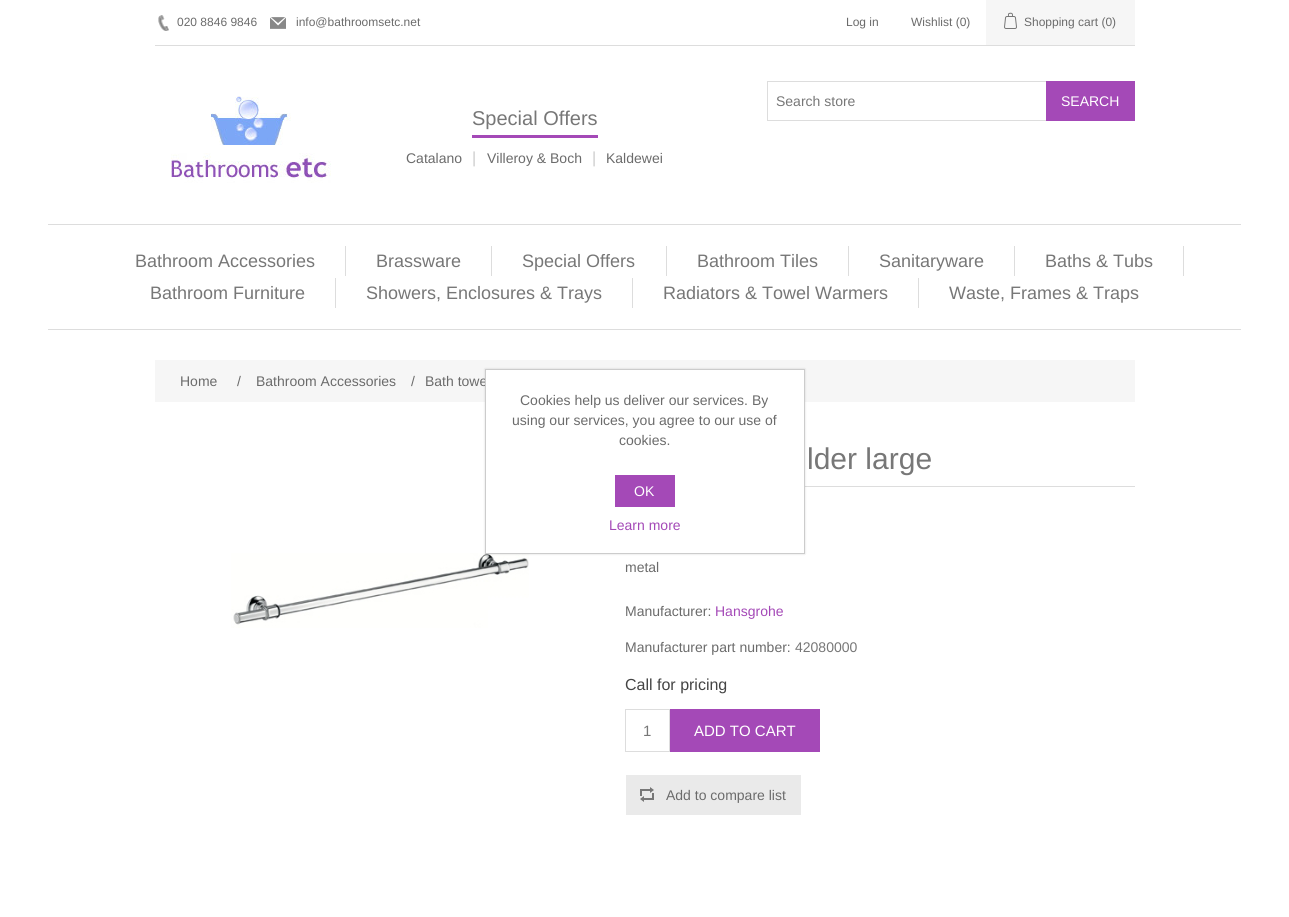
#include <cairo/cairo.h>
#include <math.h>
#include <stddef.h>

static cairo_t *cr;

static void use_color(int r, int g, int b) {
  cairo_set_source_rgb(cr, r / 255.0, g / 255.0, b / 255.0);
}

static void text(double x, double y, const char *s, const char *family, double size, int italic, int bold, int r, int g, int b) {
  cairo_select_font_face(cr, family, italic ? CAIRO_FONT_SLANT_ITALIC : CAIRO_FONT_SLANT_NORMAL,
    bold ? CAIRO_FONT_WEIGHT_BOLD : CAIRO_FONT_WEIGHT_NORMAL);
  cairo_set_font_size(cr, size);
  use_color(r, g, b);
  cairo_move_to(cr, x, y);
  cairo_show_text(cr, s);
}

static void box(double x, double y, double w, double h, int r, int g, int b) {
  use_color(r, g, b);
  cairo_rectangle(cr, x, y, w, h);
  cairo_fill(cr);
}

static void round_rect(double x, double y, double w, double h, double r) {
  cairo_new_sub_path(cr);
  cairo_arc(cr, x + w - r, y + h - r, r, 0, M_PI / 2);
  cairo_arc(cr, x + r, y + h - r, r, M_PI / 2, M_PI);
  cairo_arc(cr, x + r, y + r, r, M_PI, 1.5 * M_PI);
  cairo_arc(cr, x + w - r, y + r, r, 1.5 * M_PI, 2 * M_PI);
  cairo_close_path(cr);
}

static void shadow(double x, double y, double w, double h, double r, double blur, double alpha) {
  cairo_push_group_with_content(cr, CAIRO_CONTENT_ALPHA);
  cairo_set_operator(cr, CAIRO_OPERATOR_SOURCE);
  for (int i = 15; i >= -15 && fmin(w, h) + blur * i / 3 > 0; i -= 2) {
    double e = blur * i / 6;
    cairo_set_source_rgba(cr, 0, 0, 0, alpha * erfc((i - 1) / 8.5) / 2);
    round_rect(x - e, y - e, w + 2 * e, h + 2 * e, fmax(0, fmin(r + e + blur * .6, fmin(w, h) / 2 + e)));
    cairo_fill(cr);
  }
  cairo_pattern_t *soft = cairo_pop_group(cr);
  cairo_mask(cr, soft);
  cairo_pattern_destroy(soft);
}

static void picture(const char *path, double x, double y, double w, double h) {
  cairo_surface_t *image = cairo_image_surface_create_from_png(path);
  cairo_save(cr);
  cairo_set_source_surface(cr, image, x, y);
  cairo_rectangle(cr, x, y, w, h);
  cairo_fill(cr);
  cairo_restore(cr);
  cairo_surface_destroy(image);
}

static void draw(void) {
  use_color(255, 255, 255);
  cairo_paint(cr);
  box(155, 45, 980, 1, 221, 221, 221);
  picture("img_01.png", 158, 15, 11, 16);
  picture("img_02.png", 270, 17, 16, 12);
  box(986, 0, 149, 45, 246, 246, 246);
  picture("img_03.png", 1004, 12, 13, 17);
  picture("img_04.png", 171, 96, 160, 87);
  box(472, 135, 126, 3, 164, 73, 183);
  cairo_rectangle(cr, 767.5, 81.5, 279, 39);
  use_color(221, 221, 221);
  cairo_set_line_width(cr, 1);
  cairo_stroke(cr);
  box(1046, 81, 89, 40, 164, 73, 183);
  box(48, 224, 1193, 1, 221, 221, 221);
  box(48, 329, 1193, 1, 221, 221, 221);
  box(345, 246, 1, 30, 221, 221, 221);
  box(491, 246, 1, 30, 221, 221, 221);
  box(666, 246, 1, 30, 221, 221, 221);
  box(848, 246, 1, 30, 221, 221, 221);
  box(1014, 246, 1, 30, 221, 221, 221);
  box(1183, 246, 1, 30, 221, 221, 221);
  box(335, 278, 1, 30, 221, 221, 221);
  box(632, 278, 1, 30, 221, 221, 221);
  box(918, 278, 1, 30, 221, 221, 221);
  box(155, 360, 980, 42, 246, 246, 246);
  picture("img_05.png", 231, 553, 298, 75);
  box(805, 486, 330, 1, 221, 221, 221);
  cairo_rectangle(cr, 625.5, 709.5, 44, 42);
  cairo_stroke(cr);
  box(670, 709, 150, 43, 164, 73, 183);
  box(626, 775, 175, 40, 234, 234, 234);
  picture("img_06.png", 640, 787, 14, 15);
  use_color(0, 0, 0);
  shadow(485, 369, 320, 185, 0, 1, 0.15);
  text(177, 26, "020 8846 9846", "Liberation Sans", 12, 0, 0, 107, 107, 107);
  text(296, 26, "info@bathroomsetc.net", "Liberation Sans", 12, 0, 0, 107, 107, 107);
  text(846, 26, "Log in", "Liberation Sans", 12, 0, 0, 107, 107, 107);
  text(911, 26, "Wishlist (0)", "Liberation Sans", 12, 0, 0, 107, 107, 107);
  text(1024, 26, "Shopping cart (0)", "Liberation Sans", 12, 0, 0, 107, 107, 107);
  text(472, 125, "Special Offers", "Liberation Sans", 20, 0, 0, 119, 119, 119);
  text(406, 163, "Catalano", "Liberation Sans", 14, 0, 0, 107, 107, 107);
  text(472, 163, "|", "Liberation Sans", 16, 0, 0, 204, 204, 204);
  text(487, 163, "Villeroy & Boch", "Liberation Sans", 14, 0, 0, 107, 107, 107);
  text(592, 163, "|", "Liberation Sans", 16, 0, 0, 204, 204, 204);
  text(606, 163, "Kaldewei", "Liberation Sans", 14, 0, 0, 107, 107, 107);
  text(776, 106, "Search store", "Liberation Sans", 14, 0, 0, 119, 119, 119);
  text(1061, 106, "SEARCH", "Liberation Sans", 14, 0, 0, 255, 255, 255);
  text(135, 267, "Bathroom Accessories", "Liberation Sans", 18, 0, 0, 119, 119, 119);
  text(376, 267, "Brassware", "Liberation Sans", 18, 0, 0, 119, 119, 119);
  text(522, 267, "Special Offers", "Liberation Sans", 18, 0, 0, 119, 119, 119);
  text(697, 267, "Bathroom Tiles", "Liberation Sans", 18, 0, 0, 119, 119, 119);
  text(879, 267, "Sanitaryware", "Liberation Sans", 18, 0, 0, 119, 119, 119);
  text(1045, 267, "Baths & Tubs", "Liberation Sans", 18, 0, 0, 119, 119, 119);
  text(150, 299, "Bathroom Furniture", "Liberation Sans", 18, 0, 0, 119, 119, 119);
  text(366, 299, "Showers, Enclosures & Trays", "Liberation Sans", 18, 0, 0, 119, 119, 119);
  text(663, 299, "Radiators & Towel Warmers", "Liberation Sans", 18, 0, 0, 119, 119, 119);
  text(949, 299, "Waste, Frames & Traps", "Liberation Sans", 18, 0, 0, 119, 119, 119);
  text(180, 386, "Home", "Liberation Sans", 14, 0, 0, 107, 107, 107);
  text(237, 386, "/", "Liberation Sans", 14, 0, 0, 107, 107, 107);
  text(256, 386, "Bathroom Accessories", "Liberation Sans", 14, 0, 0, 107, 107, 107);
  text(411, 386, "/", "Liberation Sans", 14, 0, 0, 107, 107, 107);
  text(425, 386, "Bath towe", "Liberation Sans", 14, 0, 0, 107, 107, 107);
  text(807, 469, "lder large", "Liberation Sans", 30, 0, 0, 119, 119, 119);
  text(625, 572, "metal", "Liberation Sans", 14, 0, 0, 107, 107, 107);
  text(625, 616, "Manufacturer:", "Liberation Sans", 14, 0, 0, 107, 107, 107);
  text(715, 616, "Hansgrohe", "Liberation Sans", 14, 0, 0, 164, 73, 183);
  text(625, 652, "Manufacturer part number:", "Liberation Sans", 14, 0, 0, 107, 107, 107);
  text(795, 652, "42080000", "Liberation Sans", 14, 0, 0, 119, 119, 119);
  text(625, 690, "Call for pricing", "Liberation Sans", 16, 0, 0, 68, 68, 68);
  text(643, 736, "1", "Liberation Sans", 15, 0, 0, 119, 119, 119);
  text(694, 736, "ADD TO CART", "Liberation Sans", 15, 0, 0, 255, 255, 255);
  text(666, 800, "Add to compare list", "Liberation Sans", 14, 0, 0, 107, 107, 107);
  use_color(255, 255, 255);
  cairo_rectangle(cr, 485.5, 369.5, 319, 184);
  cairo_fill_preserve(cr);
  use_color(204, 204, 204);
  cairo_stroke(cr);
  text(520, 405, "Cookies help us deliver our services. By", "Liberation Sans", 14, 0, 0, 107, 107, 107);
  text(512, 425, "using our services, you agree to our use of", "Liberation Sans", 14, 0, 0, 107, 107, 107);
  text(619, 445, "cookies.", "Liberation Sans", 14, 0, 0, 107, 107, 107);
  box(615, 475, 60, 32, 164, 73, 183);
  text(634, 496, "OK", "Liberation Sans", 14, 0, 0, 255, 255, 255);
  text(609, 530, "Learn more", "Liberation Sans", 14, 0, 0, 164, 73, 183);
}

int main(void) {
  cairo_surface_t *surface = cairo_image_surface_create(CAIRO_FORMAT_RGB24, 1289, 917);
  cr = cairo_create(surface);
  cairo_font_options_t *options = cairo_font_options_create();
  cairo_font_options_set_hint_metrics(options, CAIRO_HINT_METRICS_OFF);
  cairo_font_options_set_hint_style(options, CAIRO_HINT_STYLE_NONE);
  cairo_set_font_options(cr, options);
  cairo_set_miter_limit(cr, 4);
  draw();
  cairo_surface_write_to_png(surface, "out.png");
  cairo_font_options_destroy(options);
  cairo_destroy(cr);
  cairo_surface_destroy(surface);
  return 0;
}
